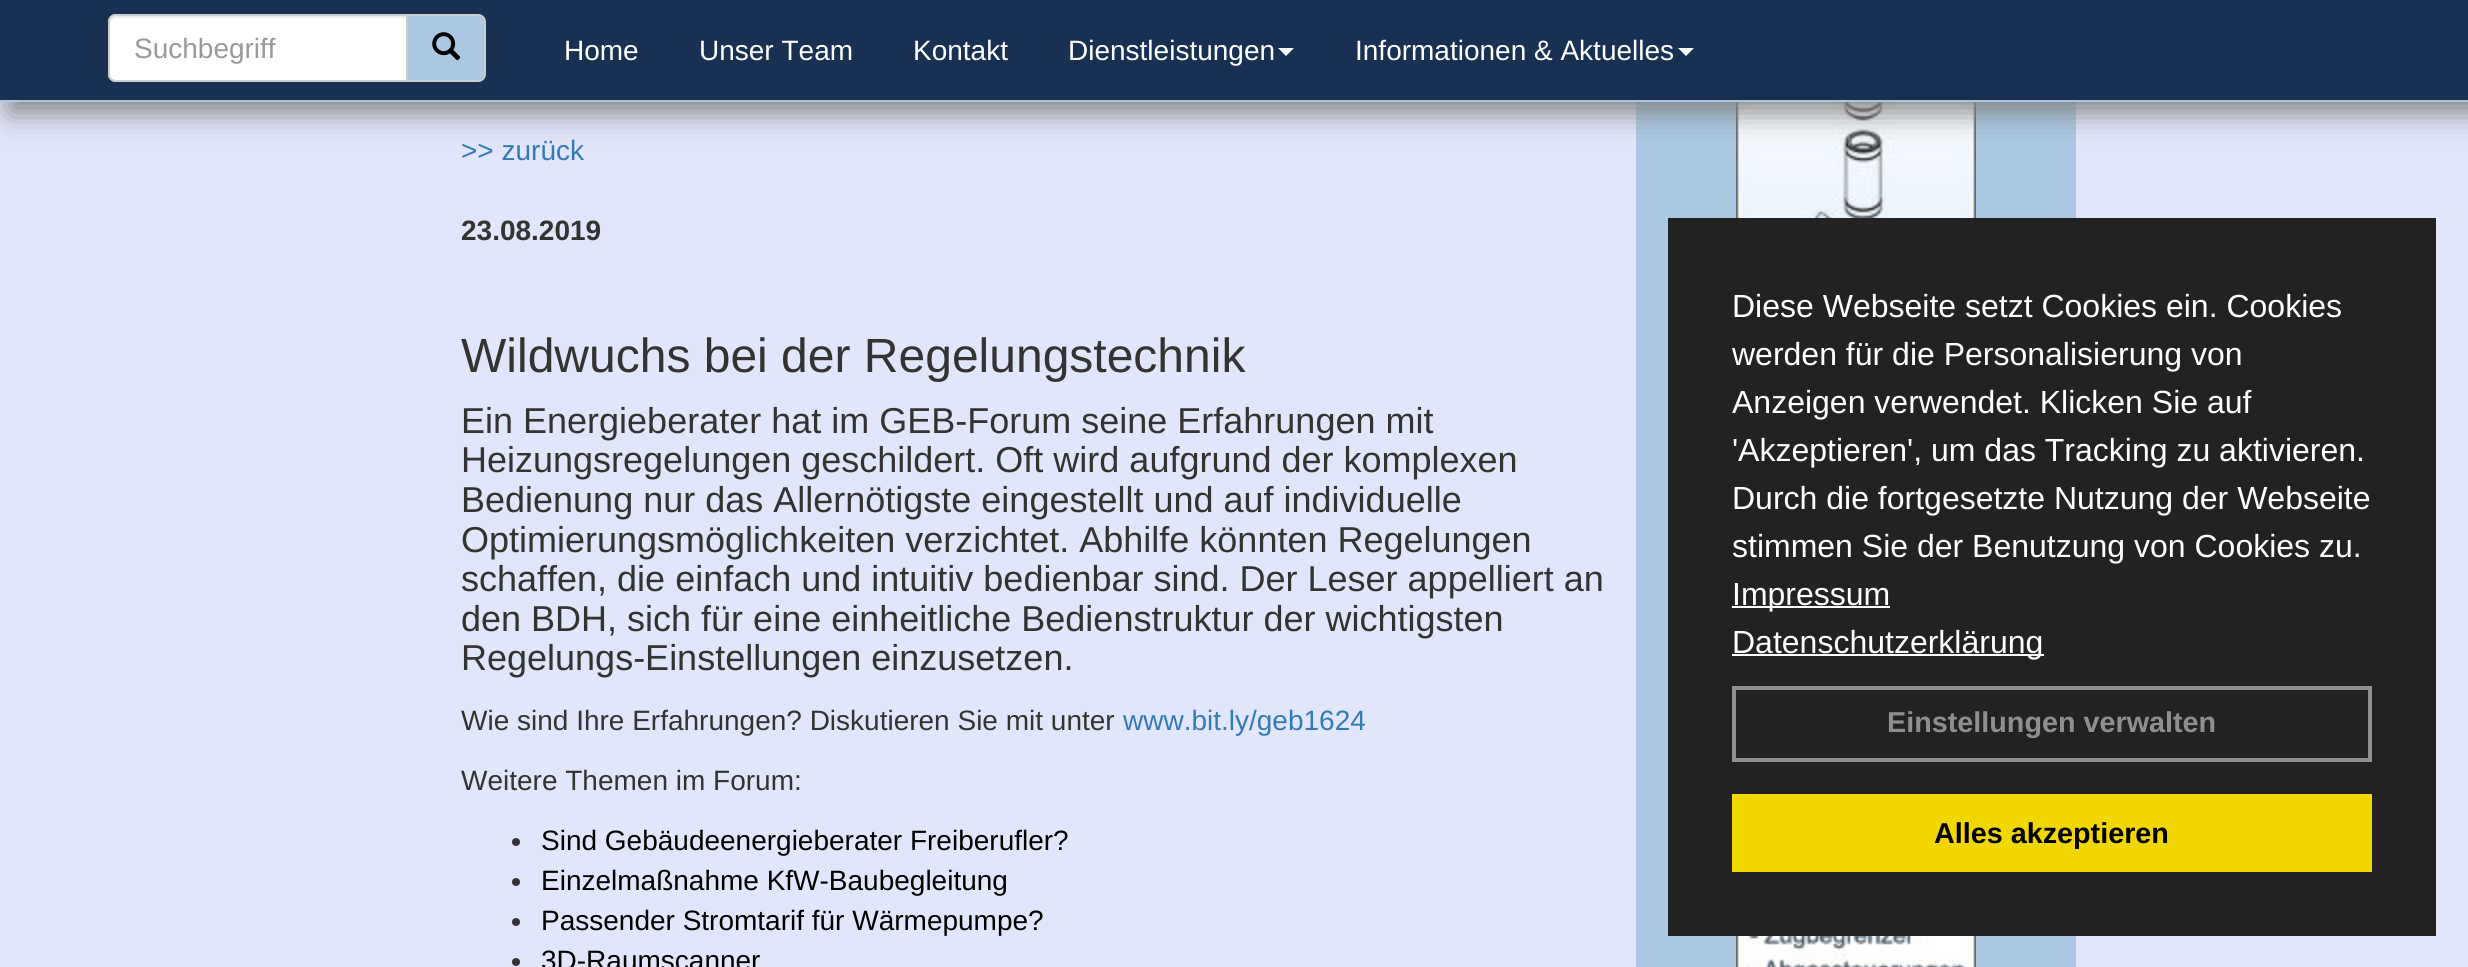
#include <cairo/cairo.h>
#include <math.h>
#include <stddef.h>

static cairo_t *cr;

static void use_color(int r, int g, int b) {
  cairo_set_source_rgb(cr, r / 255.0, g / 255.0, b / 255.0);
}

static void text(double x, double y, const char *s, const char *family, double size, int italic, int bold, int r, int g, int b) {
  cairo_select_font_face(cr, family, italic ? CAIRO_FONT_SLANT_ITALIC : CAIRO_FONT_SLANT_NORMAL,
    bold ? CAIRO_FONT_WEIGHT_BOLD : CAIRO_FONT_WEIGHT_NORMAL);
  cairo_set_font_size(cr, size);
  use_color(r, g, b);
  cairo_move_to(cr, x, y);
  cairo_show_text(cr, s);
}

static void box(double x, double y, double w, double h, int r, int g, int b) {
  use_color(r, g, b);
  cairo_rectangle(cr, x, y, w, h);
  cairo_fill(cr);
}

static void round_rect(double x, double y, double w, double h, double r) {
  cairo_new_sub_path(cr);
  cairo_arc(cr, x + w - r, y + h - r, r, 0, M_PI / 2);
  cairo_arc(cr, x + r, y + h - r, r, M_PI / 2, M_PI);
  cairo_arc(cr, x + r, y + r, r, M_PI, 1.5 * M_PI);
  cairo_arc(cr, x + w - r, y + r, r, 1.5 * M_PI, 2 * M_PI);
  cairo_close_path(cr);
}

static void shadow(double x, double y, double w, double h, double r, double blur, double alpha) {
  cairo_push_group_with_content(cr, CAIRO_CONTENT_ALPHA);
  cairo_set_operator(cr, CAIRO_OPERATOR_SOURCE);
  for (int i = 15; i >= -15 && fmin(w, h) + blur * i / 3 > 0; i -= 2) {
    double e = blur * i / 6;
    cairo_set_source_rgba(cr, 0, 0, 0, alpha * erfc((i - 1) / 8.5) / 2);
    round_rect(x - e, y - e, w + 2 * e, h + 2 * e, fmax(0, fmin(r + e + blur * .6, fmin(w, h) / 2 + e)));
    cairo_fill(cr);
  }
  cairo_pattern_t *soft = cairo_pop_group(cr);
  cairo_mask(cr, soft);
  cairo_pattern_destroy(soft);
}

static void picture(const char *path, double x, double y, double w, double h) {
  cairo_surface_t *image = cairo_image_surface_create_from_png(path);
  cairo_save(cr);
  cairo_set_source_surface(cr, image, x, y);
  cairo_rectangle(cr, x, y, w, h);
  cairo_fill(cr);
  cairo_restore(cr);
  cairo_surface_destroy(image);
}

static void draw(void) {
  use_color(225, 230, 250);
  cairo_paint(cr);
  box(1636, 102, 440, 865, 171, 200, 226);
  picture("img_02.png", 1736, 102, 240, 865);
  use_color(128, 128, 128);
  shadow(10, 10, 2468, 102, 0, 15, 1);
  box(0, 0, 2468, 100, 24, 49, 82);
  box(0, 100, 2468, 2, 171, 200, 226);
  use_color(255, 255, 255);
  cairo_new_path(cr);
  cairo_move_to(cr, 116, 14);
  cairo_line_to(cr, 408, 14);
  cairo_line_to(cr, 408, 82);
  cairo_line_to(cr, 116, 82);
  cairo_curve_to(cr, 111.5, 82, 108, 78.5, 108, 74);
  cairo_line_to(cr, 108, 22);
  cairo_curve_to(cr, 108, 17.5, 111.5, 14, 116, 14);
  cairo_close_path(cr);
  cairo_fill(cr);
  use_color(236, 236, 236);
  cairo_new_path(cr);
  cairo_move_to(cr, 116, 18);
  cairo_line_to(cr, 406, 18);
  cairo_line_to(cr, 406, 16);
  cairo_line_to(cr, 116, 16);
  cairo_curve_to(cr, 111, 16, 110, 20, 110, 24);
  cairo_curve_to(cr, 110, 21, 113, 18, 116, 18);
  cairo_close_path(cr);
  cairo_fill(cr);
  cairo_new_path(cr);
  cairo_move_to(cr, 116, 15);
  cairo_line_to(cr, 407, 15);
  cairo_line_to(cr, 407, 81);
  cairo_line_to(cr, 116, 81);
  cairo_curve_to(cr, 112, 81, 109, 78, 109, 74);
  cairo_line_to(cr, 109, 22);
  cairo_curve_to(cr, 109, 18, 112, 15, 116, 15);
  cairo_close_path(cr);
  use_color(204, 204, 204);
  cairo_stroke(cr);
  use_color(171, 200, 226);
  cairo_new_path(cr);
  cairo_move_to(cr, 407, 15);
  cairo_line_to(cr, 478, 15);
  cairo_curve_to(cr, 482, 15, 485, 18, 485, 22);
  cairo_line_to(cr, 485, 74);
  cairo_curve_to(cr, 485, 78, 482, 81, 478, 81);
  cairo_line_to(cr, 407, 81);
  cairo_close_path(cr);
  cairo_fill_preserve(cr);
  use_color(204, 204, 204);
  cairo_stroke(cr);
  picture("img_01.png", 432, 32, 29, 29);
  use_color(255, 255, 255);
  cairo_new_path(cr);
  cairo_move_to(cr, 1278, 48);
  cairo_line_to(cr, 1294, 48);
  cairo_line_to(cr, 1286, 56);
  cairo_close_path(cr);
  cairo_fill(cr);
  cairo_new_path(cr);
  cairo_move_to(cr, 1678, 48);
  cairo_line_to(cr, 1694, 48);
  cairo_line_to(cr, 1686, 56);
  cairo_close_path(cr);
  cairo_fill(cr);
  use_color(51, 51, 51);
  cairo_arc(cr, 516, 842, 4, 0, 2 * M_PI);
  cairo_fill(cr);
  cairo_arc(cr, 516, 882, 4, 0, 2 * M_PI);
  cairo_fill(cr);
  cairo_arc(cr, 516, 922, 4, 0, 2 * M_PI);
  cairo_fill(cr);
  cairo_arc(cr, 516, 962, 4, 0, 2 * M_PI);
  cairo_fill(cr);
  box(1668, 218, 768, 718, 34, 34, 34);
  box(1732, 606, 158, 2, 255, 255, 255);
  box(1732, 654, 312, 2, 255, 255, 255);
  cairo_rectangle(cr, 1734, 688, 636, 72);
  use_color(143, 143, 143);
  cairo_set_line_width(cr, 4);
  cairo_stroke(cr);
  box(1732, 794, 640, 78, 241, 214, 0);
  text(134, 58, "Suchbegriff", "Liberation Sans", 28, 0, 0, 153, 153, 153);
  text(564, 60, "Home", "Liberation Sans", 28, 0, 0, 255, 255, 255);
  text(699, 60, "Unser Team", "Liberation Sans", 28, 0, 0, 255, 255, 255);
  text(913, 60, "Kontakt", "Liberation Sans", 28, 0, 0, 255, 255, 255);
  text(1068, 60, "Dienstleistungen", "Liberation Sans", 28, 0, 0, 255, 255, 255);
  text(1355, 60, "Informationen & Aktuelles", "Liberation Sans", 28, 0, 0, 255, 255, 255);
  text(461, 160, ">> zurück", "Liberation Sans", 28, 0, 0, 51, 122, 183);
  text(461, 240, "23.08.2019", "Liberation Sans", 28, 0, 1, 51, 51, 51);
  text(461, 372, "Wildwuchs bei der Regelungstechnik", "Liberation Sans", 48, 0, 0, 51, 51, 51);
  text(461, 433, "Ein Energieberater hat im GEB-Forum seine Erfahrungen mit", "Liberation Sans", 36, 0, 0, 51, 51, 51);
  text(461, 472, "Heizungsregelungen geschildert. Oft wird aufgrund der komplexen", "Liberation Sans", 36, 0, 0, 51, 51, 51);
  text(461, 512, "Bedienung nur das Allernötigste eingestellt und auf individuelle", "Liberation Sans", 36, 0, 0, 51, 51, 51);
  text(461, 552, "Optimierungsmöglichkeiten verzichtet. Abhilfe könnten Regelungen", "Liberation Sans", 36, 0, 0, 51, 51, 51);
  text(461, 591, "schaffen, die einfach und intuitiv bedienbar sind. Der Leser appelliert an", "Liberation Sans", 36, 0, 0, 51, 51, 51);
  text(461, 631, "den BDH, sich für eine einheitliche Bedienstruktur der wichtigsten", "Liberation Sans", 36, 0, 0, 51, 51, 51);
  text(461, 670, "Regelungs-Einstellungen einzusetzen.", "Liberation Sans", 36, 0, 0, 51, 51, 51);
  text(461, 730, "Wie sind Ihre Erfahrungen? Diskutieren Sie mit unter", "Liberation Sans", 28, 0, 0, 51, 51, 51);
  text(1123, 730, "www.bit.ly/geb1624", "Liberation Sans", 28, 0, 0, 51, 122, 183);
  text(461, 790, "Weitere Themen im Forum:", "Liberation Sans", 28, 0, 0, 51, 51, 51);
  text(541, 850, "Sind Gebäudeenergieberater Freiberufler?", "Liberation Sans", 28, 0, 0, 0, 0, 0);
  text(541, 890, "Einzelmaßnahme KfW-Baubegleitung", "Liberation Sans", 28, 0, 0, 0, 0, 0);
  text(541, 930, "Passender Stromtarif für Wärmepumpe?", "Liberation Sans", 28, 0, 0, 0, 0, 0);
  text(541, 970, "3D-Raumscanner", "Liberation Sans", 28, 0, 0, 0, 0, 0);
  text(1732, 317, "Diese Webseite setzt Cookies ein. Cookies", "Liberation Sans", 32, 0, 0, 255, 255, 255);
  text(1732, 365, "werden für die Personalisierung von", "Liberation Sans", 32, 0, 0, 255, 255, 255);
  text(1732, 413, "Anzeigen verwendet. Klicken Sie auf", "Liberation Sans", 32, 0, 0, 255, 255, 255);
  text(1732, 461, "'Akzeptieren', um das Tracking zu aktivieren.", "Liberation Sans", 32, 0, 0, 255, 255, 255);
  text(1732, 509, "Durch die fortgesetzte Nutzung der Webseite", "Liberation Sans", 32, 0, 0, 255, 255, 255);
  text(1732, 557, "stimmen Sie der Benutzung von Cookies zu.", "Liberation Sans", 32, 0, 0, 255, 255, 255);
  text(1732, 605, "Impressum", "Liberation Sans", 32, 0, 0, 255, 255, 255);
  text(1732, 653, "Datenschutzerklärung", "Liberation Sans", 32, 0, 0, 255, 255, 255);
  text(1887, 732, "Einstellungen verwalten", "Liberation Sans", 28.75, 0, 1, 143, 143, 143);
  text(1934, 843, "Alles akzeptieren", "Liberation Sans", 28.75, 0, 1, 0, 0, 0);
}

int main(void) {
  cairo_surface_t *surface = cairo_image_surface_create(CAIRO_FORMAT_RGB24, 2468, 967);
  cr = cairo_create(surface);
  cairo_font_options_t *options = cairo_font_options_create();
  cairo_font_options_set_hint_metrics(options, CAIRO_HINT_METRICS_OFF);
  cairo_font_options_set_hint_style(options, CAIRO_HINT_STYLE_NONE);
  cairo_set_font_options(cr, options);
  cairo_set_miter_limit(cr, 4);
  draw();
  cairo_surface_write_to_png(surface, "out.png");
  cairo_font_options_destroy(options);
  cairo_destroy(cr);
  cairo_surface_destroy(surface);
  return 0;
}
